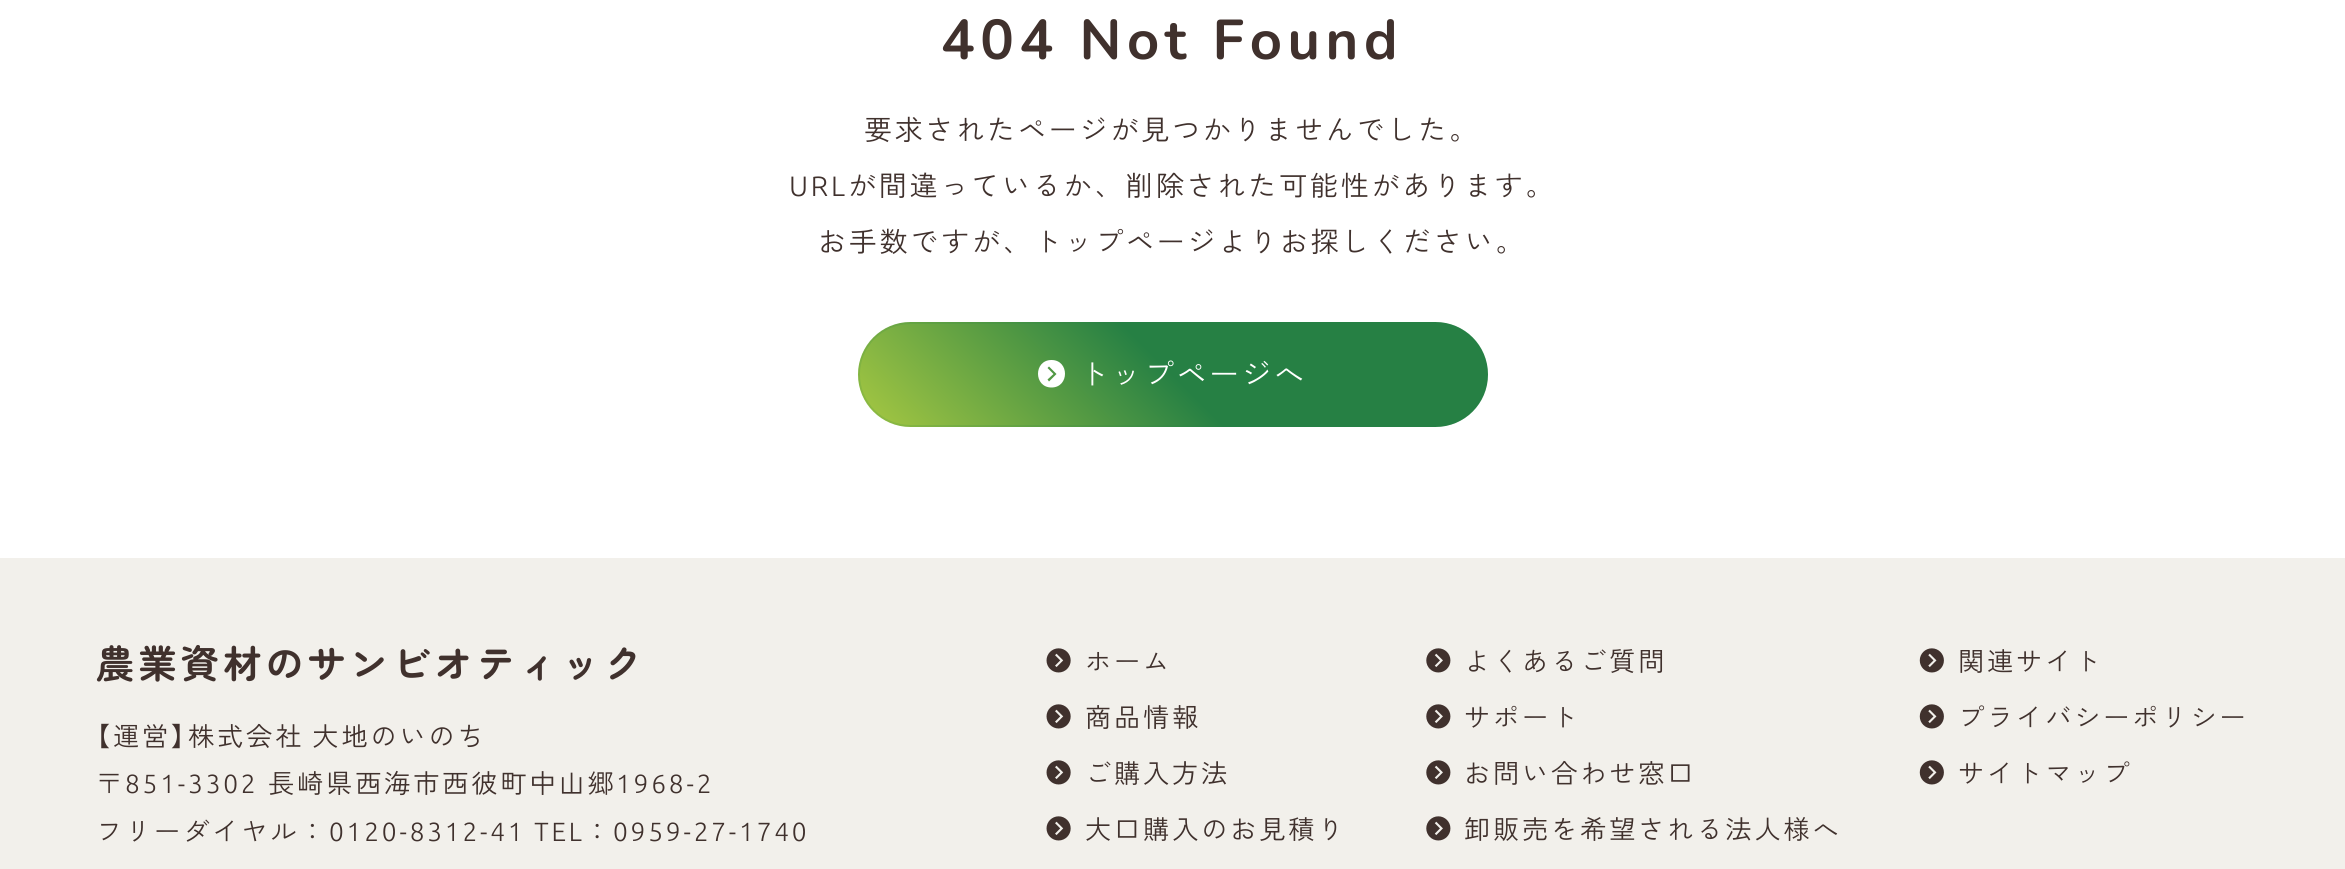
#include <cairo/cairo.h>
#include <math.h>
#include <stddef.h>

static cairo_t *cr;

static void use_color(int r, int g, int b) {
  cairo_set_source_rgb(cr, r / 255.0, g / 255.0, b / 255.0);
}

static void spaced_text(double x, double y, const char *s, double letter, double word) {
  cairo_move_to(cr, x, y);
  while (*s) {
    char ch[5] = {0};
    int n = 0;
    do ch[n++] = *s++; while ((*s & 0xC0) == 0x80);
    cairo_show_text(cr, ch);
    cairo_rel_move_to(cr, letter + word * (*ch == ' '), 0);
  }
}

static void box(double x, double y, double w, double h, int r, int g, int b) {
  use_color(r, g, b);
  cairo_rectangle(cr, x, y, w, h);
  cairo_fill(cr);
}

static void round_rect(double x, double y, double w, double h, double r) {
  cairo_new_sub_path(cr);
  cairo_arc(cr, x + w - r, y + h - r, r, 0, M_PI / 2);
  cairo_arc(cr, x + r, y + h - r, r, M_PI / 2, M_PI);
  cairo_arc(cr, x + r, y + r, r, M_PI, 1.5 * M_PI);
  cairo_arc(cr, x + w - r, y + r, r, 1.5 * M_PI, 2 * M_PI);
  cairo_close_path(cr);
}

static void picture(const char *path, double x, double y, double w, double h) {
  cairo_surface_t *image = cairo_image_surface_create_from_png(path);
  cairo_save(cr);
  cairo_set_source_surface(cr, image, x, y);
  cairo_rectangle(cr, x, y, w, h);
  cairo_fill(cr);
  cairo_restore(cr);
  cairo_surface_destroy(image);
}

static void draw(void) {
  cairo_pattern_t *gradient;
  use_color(255, 255, 255);
  cairo_paint(cr);
  gradient = cairo_pattern_create_linear(989, 558, 1356, 191);
  cairo_pattern_add_color_stop_rgba(gradient, 0, 0.659, 0.788, 0.259, 1);
  cairo_pattern_add_color_stop_rgba(gradient, 0.5, 0.149, 0.502, 0.267, 1);
  cairo_set_source(cr, gradient);
  cairo_pattern_destroy(gradient);
  round_rect(858, 322, 630, 105, 52.5);
  cairo_fill(cr);
  use_color(255, 255, 255);
  cairo_new_path(cr);
  cairo_move_to(cr, 1051.5, 360);
  cairo_curve_to(cr, 1033.5, 360, 1033.5, 387.5, 1051.5, 387.5);
  cairo_curve_to(cr, 1069.5, 387.5, 1069.5, 360, 1051.5, 360);
  cairo_close_path(cr);
  cairo_move_to(cr, 1049, 381.5);
  cairo_line_to(cr, 1047.5, 379.5);
  cairo_line_to(cr, 1053.5, 374);
  cairo_line_to(cr, 1047.5, 368);
  cairo_line_to(cr, 1049, 366.5);
  cairo_line_to(cr, 1056.5, 374);
  cairo_close_path(cr);
  cairo_fill(cr);
  round_rect(859, 323, 628, 103, 51.5);
  cairo_set_source_rgba(cr, 0.149, 0.502, 0.267, 0.15);
  cairo_stroke(cr);
  box(0, 558, 2345, 311, 242, 240, 235);
  picture("img_01.png", 1046, 648, 25, 25);
  picture("img_01.png", 1046, 704, 25, 25);
  picture("img_01.png", 1046, 760, 25, 25);
  picture("img_01.png", 1046, 816, 25, 25);
  picture("img_02.png", 1426, 648, 25, 25);
  picture("img_02.png", 1426, 704, 25, 25);
  picture("img_02.png", 1426, 760, 25, 25);
  picture("img_02.png", 1426, 816, 25, 25);
  picture("img_03.png", 1919, 648, 25, 25);
  picture("img_03.png", 1919, 704, 25, 25);
  picture("img_03.png", 1919, 760, 25, 25);
  cairo_select_font_face(cr, "Nunito ExtraLight", CAIRO_FONT_SLANT_NORMAL, CAIRO_FONT_WEIGHT_NORMAL);
  cairo_set_font_size(cr, 56);
  use_color(64, 49, 45);
  spaced_text(941, 59, "404 Not Found", 5.6, 0);
  cairo_select_font_face(cr, "Zen Kaku Gothic New", CAIRO_FONT_SLANT_NORMAL, CAIRO_FONT_WEIGHT_NORMAL);
  cairo_set_font_size(cr, 28);
  spaced_text(864, 140, "要求されたページが見つかりませんでした。", 2.8, 0);
  cairo_select_font_face(cr, "Ubuntu Light", CAIRO_FONT_SLANT_NORMAL, CAIRO_FONT_WEIGHT_NORMAL);
  spaced_text(789, 196, "URL", 2.8, 0);
  cairo_select_font_face(cr, "Zen Kaku Gothic New", CAIRO_FONT_SLANT_NORMAL, CAIRO_FONT_WEIGHT_NORMAL);
  spaced_text(848, 196, "が間違っているか、削除された可能性があります。", 2.8, 0);
  spaced_text(818, 252, "お手数ですが、トップページよりお探しください。", 2.8, 0);
  cairo_set_font_size(cr, 29.75);
  use_color(255, 255, 255);
  spaced_text(1079, 385, "トップページへ", 2.8, 0);
  cairo_select_font_face(cr, "Zen Maru Gothic", CAIRO_FONT_SLANT_NORMAL, CAIRO_FONT_WEIGHT_BOLD);
  cairo_set_font_size(cr, 38.5);
  use_color(64, 49, 45);
  spaced_text(96, 678, "農業資材のサンビオティック", 3.8, 0);
  cairo_select_font_face(cr, "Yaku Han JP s", CAIRO_FONT_SLANT_NORMAL, CAIRO_FONT_WEIGHT_NORMAL);
  cairo_set_font_size(cr, 26.25);
  spaced_text(96, 746, "【", 2.8, 0);
  cairo_select_font_face(cr, "Zen Kaku Gothic New", CAIRO_FONT_SLANT_NORMAL, CAIRO_FONT_WEIGHT_NORMAL);
  spaced_text(113, 746, "運営", 2.8, 0);
  cairo_select_font_face(cr, "Yaku Han JP s", CAIRO_FONT_SLANT_NORMAL, CAIRO_FONT_WEIGHT_NORMAL);
  spaced_text(171, 746, "】", 2.8, 0);
  cairo_select_font_face(cr, "Zen Kaku Gothic New", CAIRO_FONT_SLANT_NORMAL, CAIRO_FONT_WEIGHT_NORMAL);
  spaced_text(188, 746, "株式会社 大地のいのち", 2.8, -2);
  spaced_text(96, 793, "〒", 2.8, 0);
  cairo_select_font_face(cr, "Ubuntu Light", CAIRO_FONT_SLANT_NORMAL, CAIRO_FONT_WEIGHT_NORMAL);
  spaced_text(125, 793, "851-3302", 2.8, 0);
  cairo_select_font_face(cr, "Zen Kaku Gothic New", CAIRO_FONT_SLANT_NORMAL, CAIRO_FONT_WEIGHT_NORMAL);
  spaced_text(268, 793, "長崎県西海市西彼町中山郷", 2.8, 0);
  cairo_select_font_face(cr, "Ubuntu Light", CAIRO_FONT_SLANT_NORMAL, CAIRO_FONT_WEIGHT_NORMAL);
  spaced_text(616, 793, "1968-2", 2.8, 0);
  cairo_select_font_face(cr, "Zen Kaku Gothic New", CAIRO_FONT_SLANT_NORMAL, CAIRO_FONT_WEIGHT_NORMAL);
  spaced_text(96, 841, "フリーダイヤル：", 2.8, 0);
  cairo_select_font_face(cr, "Ubuntu Light", CAIRO_FONT_SLANT_NORMAL, CAIRO_FONT_WEIGHT_NORMAL);
  spaced_text(329, 841, "0120-8312-41 TEL", 2.8, 0);
  cairo_select_font_face(cr, "Zen Kaku Gothic New", CAIRO_FONT_SLANT_NORMAL, CAIRO_FONT_WEIGHT_NORMAL);
  spaced_text(584, 841, "：", 2.8, 0);
  cairo_select_font_face(cr, "Ubuntu Light", CAIRO_FONT_SLANT_NORMAL, CAIRO_FONT_WEIGHT_NORMAL);
  spaced_text(613, 841, "0959-27-1740", 2.8, 0);
  cairo_select_font_face(cr, "Zen Kaku Gothic New", CAIRO_FONT_SLANT_NORMAL, CAIRO_FONT_WEIGHT_NORMAL);
  spaced_text(1085, 671, "ホーム", 2.8, 0);
  spaced_text(1085, 727, "商品情報", 2.8, 0);
  spaced_text(1085, 783, "ご購入方法", 2.8, 0);
  spaced_text(1085, 839, "大口購入のお見積り", 2.8, 0);
  spaced_text(1464, 671, "よくあるご質問", 2.8, 0);
  spaced_text(1464, 727, "サポート", 2.8, 0);
  spaced_text(1464, 783, "お問い合わせ窓口", 2.8, 0);
  spaced_text(1464, 839, "卸販売を希望される法人様へ", 2.8, 0);
  spaced_text(1958, 671, "関連サイト", 2.8, 0);
  spaced_text(1958, 727, "プライバシーポリシー", 2.8, 0);
  spaced_text(1958, 783, "サイトマップ", 2.8, 0);
}

int main(void) {
  cairo_surface_t *surface = cairo_image_surface_create(CAIRO_FORMAT_RGB24, 2345, 869);
  cr = cairo_create(surface);
  cairo_font_options_t *options = cairo_font_options_create();
  cairo_font_options_set_hint_metrics(options, CAIRO_HINT_METRICS_OFF);
  cairo_font_options_set_hint_style(options, CAIRO_HINT_STYLE_NONE);
  cairo_set_font_options(cr, options);
  cairo_set_miter_limit(cr, 4);
  draw();
  cairo_surface_write_to_png(surface, "out.png");
  cairo_font_options_destroy(options);
  cairo_destroy(cr);
  cairo_surface_destroy(surface);
  return 0;
}
